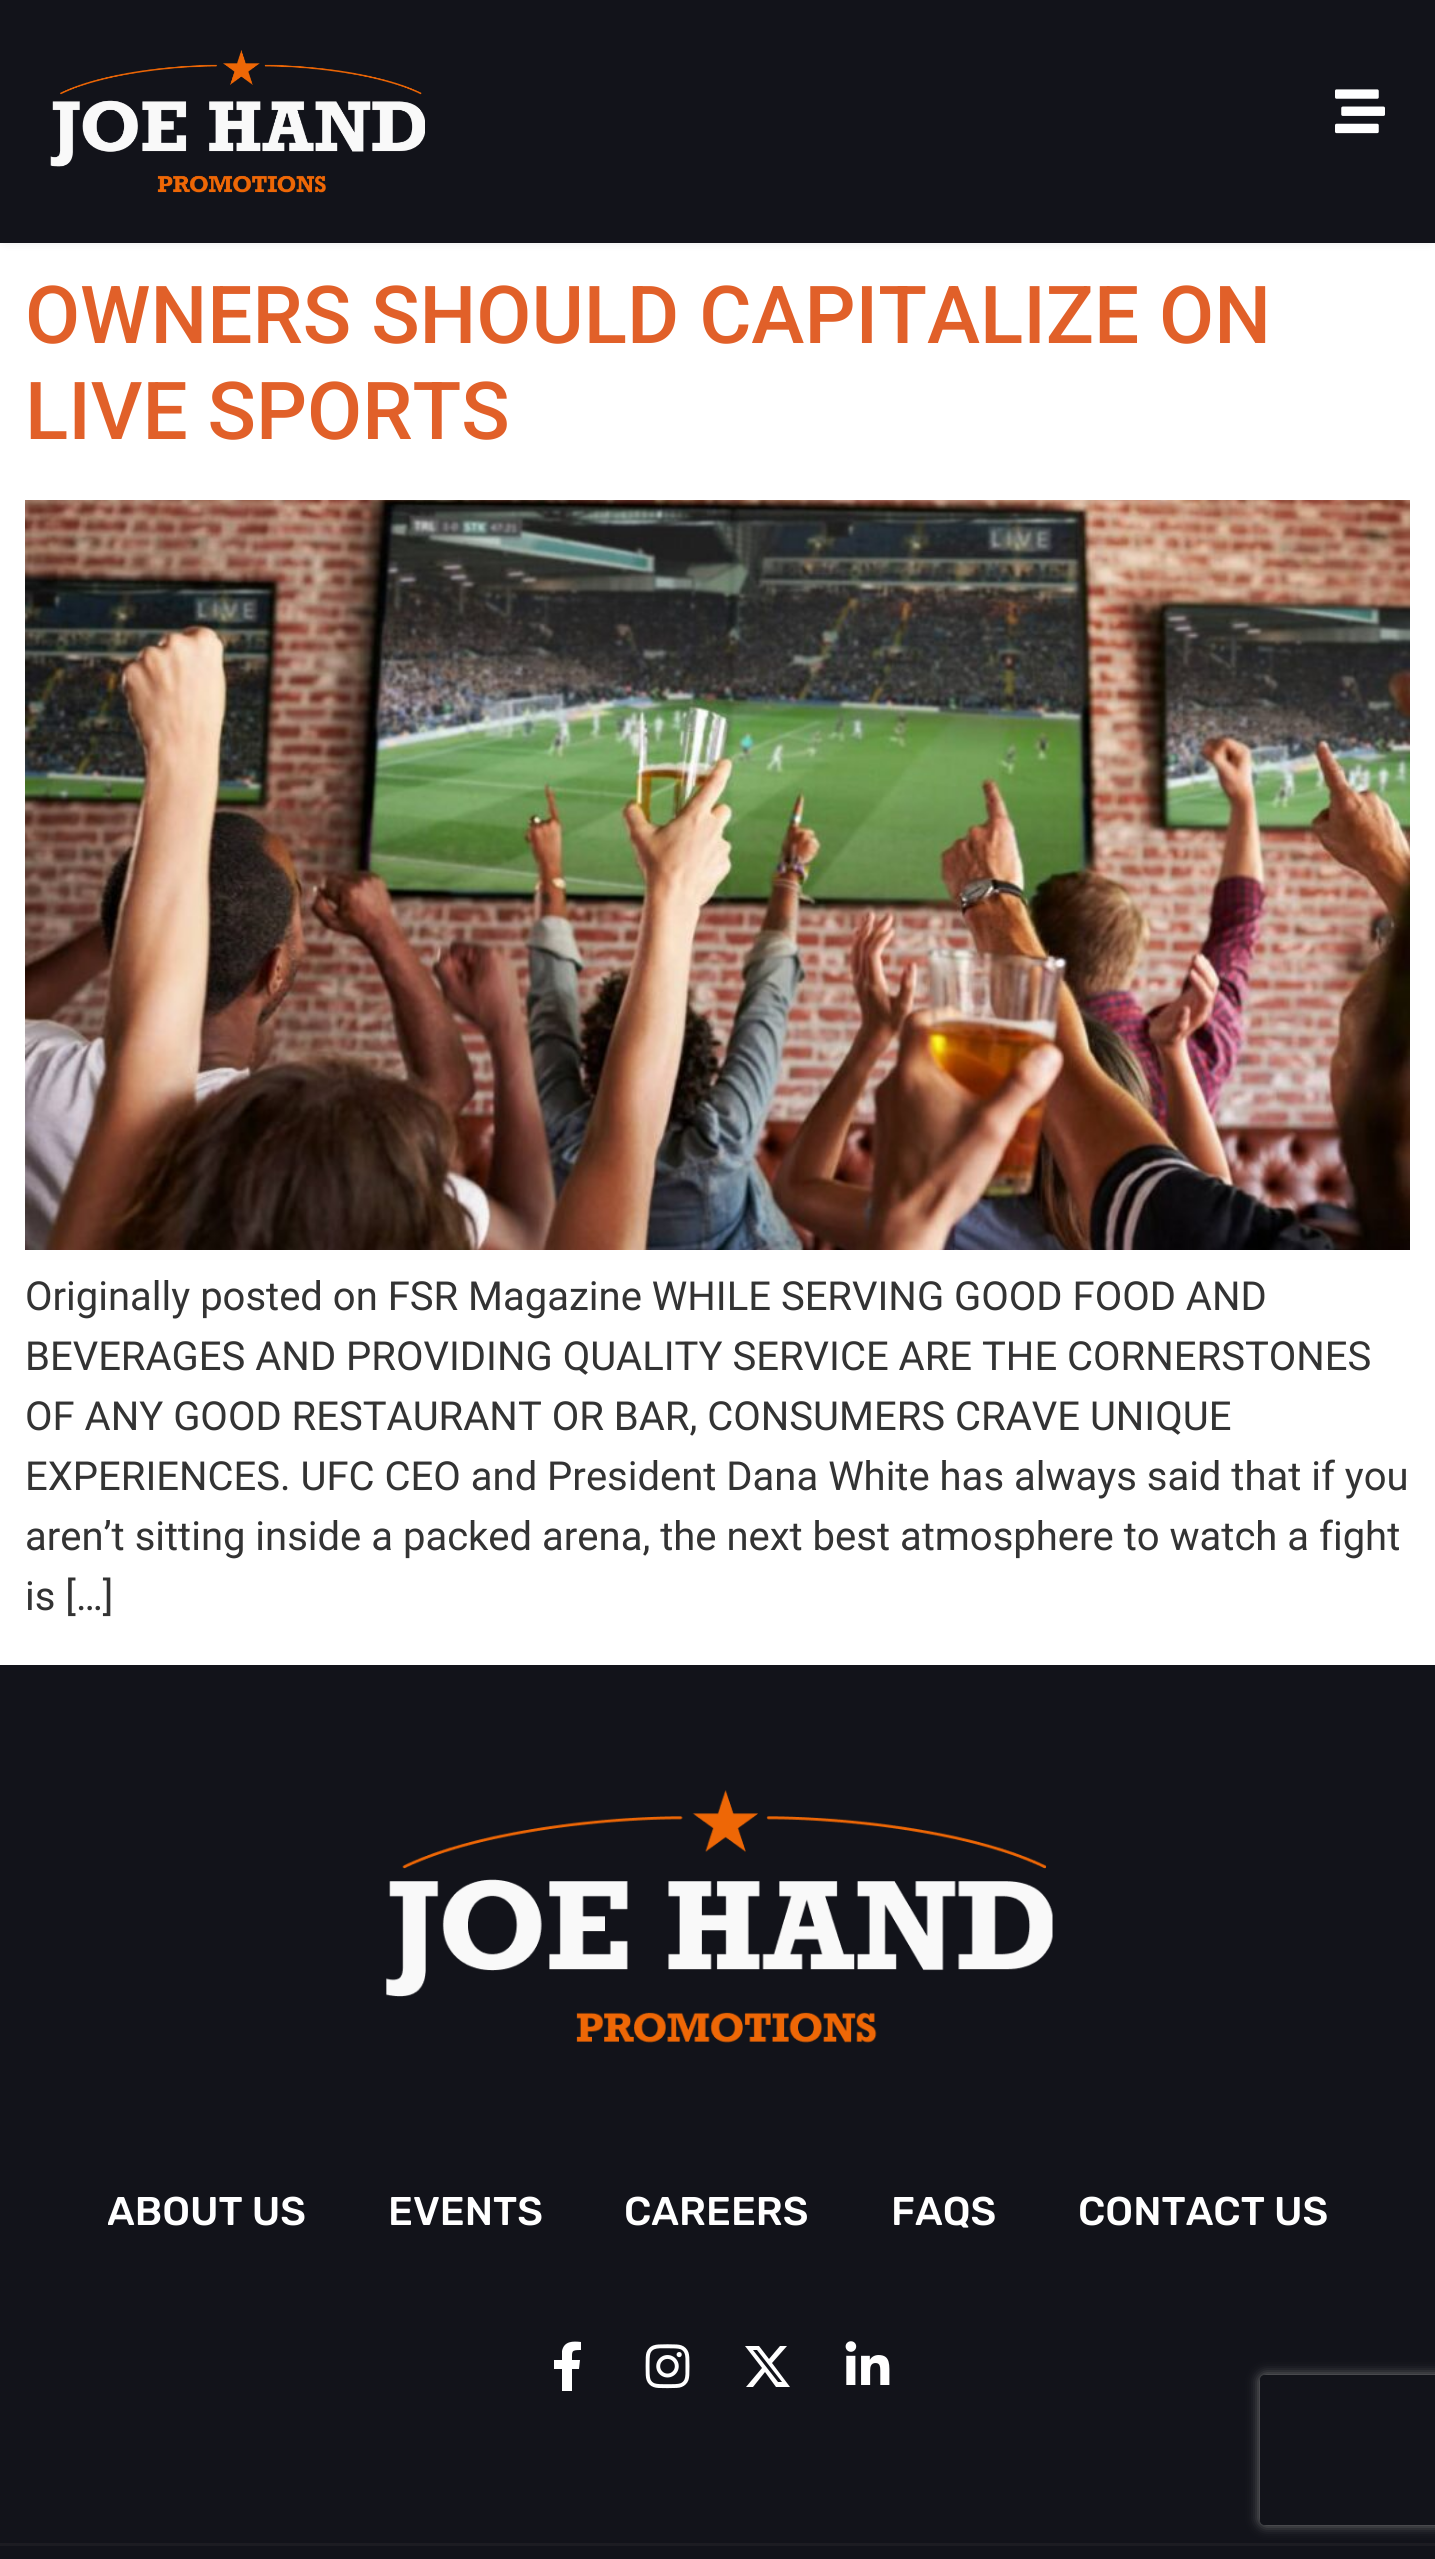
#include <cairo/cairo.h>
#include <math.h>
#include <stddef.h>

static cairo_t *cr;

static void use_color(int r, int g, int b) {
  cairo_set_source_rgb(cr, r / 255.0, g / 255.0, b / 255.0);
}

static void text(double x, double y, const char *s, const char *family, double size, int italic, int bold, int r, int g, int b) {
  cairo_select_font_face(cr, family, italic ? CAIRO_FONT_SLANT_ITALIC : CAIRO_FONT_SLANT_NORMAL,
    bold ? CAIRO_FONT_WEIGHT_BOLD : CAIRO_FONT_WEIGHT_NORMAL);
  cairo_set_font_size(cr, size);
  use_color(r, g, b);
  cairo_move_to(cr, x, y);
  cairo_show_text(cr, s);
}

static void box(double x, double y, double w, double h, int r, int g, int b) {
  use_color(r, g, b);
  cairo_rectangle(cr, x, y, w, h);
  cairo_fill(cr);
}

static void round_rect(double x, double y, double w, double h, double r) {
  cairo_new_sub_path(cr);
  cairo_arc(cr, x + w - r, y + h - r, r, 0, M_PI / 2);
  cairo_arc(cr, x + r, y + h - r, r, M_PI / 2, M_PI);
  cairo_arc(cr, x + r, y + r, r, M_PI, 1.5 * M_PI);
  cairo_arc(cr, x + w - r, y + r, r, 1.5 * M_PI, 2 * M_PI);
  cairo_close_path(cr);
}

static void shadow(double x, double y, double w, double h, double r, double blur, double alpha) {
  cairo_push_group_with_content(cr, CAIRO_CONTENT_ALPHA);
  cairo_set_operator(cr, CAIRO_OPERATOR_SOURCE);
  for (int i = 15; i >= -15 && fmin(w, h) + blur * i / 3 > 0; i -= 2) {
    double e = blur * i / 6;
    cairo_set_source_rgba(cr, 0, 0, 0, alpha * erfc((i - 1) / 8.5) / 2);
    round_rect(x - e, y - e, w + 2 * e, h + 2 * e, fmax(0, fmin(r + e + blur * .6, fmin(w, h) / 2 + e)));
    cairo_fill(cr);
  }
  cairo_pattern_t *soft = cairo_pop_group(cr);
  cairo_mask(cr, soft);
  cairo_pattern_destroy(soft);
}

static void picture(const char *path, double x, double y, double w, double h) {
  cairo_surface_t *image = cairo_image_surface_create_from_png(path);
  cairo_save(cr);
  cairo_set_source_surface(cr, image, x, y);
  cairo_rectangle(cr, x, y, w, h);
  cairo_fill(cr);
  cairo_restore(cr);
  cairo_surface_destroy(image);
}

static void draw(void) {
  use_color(255, 255, 255);
  cairo_paint(cr);
  use_color(139, 139, 139);
  shadow(5, 5, 1425, 233, 0, 6, 0.5);
  box(0, 0, 1435, 243, 18, 19, 26);
  picture("img_01.png", 50, 50, 375, 143);
  picture("img_02.png", 1335, 89, 50, 45);
  picture("img_03.png", 25, 500, 1385, 750);
  box(0, 1665, 1435, 878, 18, 19, 26);
  picture("img_04.png", 386, 1790, 667, 253);
  use_color(255, 255, 255);
  cairo_new_path(cr);
  cairo_move_to(cr, 579, 2369);
  cairo_line_to(cr, 572, 2369);
  cairo_line_to(cr, 572, 2391);
  cairo_line_to(cr, 562, 2391);
  cairo_line_to(cr, 562, 2369);
  cairo_line_to(cr, 554, 2369);
  cairo_line_to(cr, 554, 2360);
  cairo_line_to(cr, 562, 2360);
  cairo_line_to(cr, 562, 2351);
  cairo_curve_to(cr, 564, 2341, 573, 2341, 581, 2342);
  cairo_line_to(cr, 581, 2350);
  cairo_curve_to(cr, 571, 2350, 572, 2351, 572, 2360);
  cairo_line_to(cr, 580, 2360);
  cairo_close_path(cr);
  cairo_fill(cr);
  picture("img_05.png", 645, 2344, 45, 45);
  cairo_new_path(cr);
  cairo_move_to(cr, 780, 2346);
  cairo_line_to(cr, 787, 2346);
  cairo_line_to(cr, 772, 2363);
  cairo_line_to(cr, 790, 2387);
  cairo_line_to(cr, 776, 2387);
  cairo_line_to(cr, 765, 2372);
  cairo_line_to(cr, 753, 2387);
  cairo_line_to(cr, 746, 2387);
  cairo_line_to(cr, 762, 2368);
  cairo_line_to(cr, 745, 2346);
  cairo_line_to(cr, 759, 2346);
  cairo_line_to(cr, 769, 2359);
  cairo_close_path(cr);
  cairo_move_to(cr, 778, 2382);
  cairo_line_to(cr, 782, 2382);
  cairo_line_to(cr, 757, 2350);
  cairo_line_to(cr, 753, 2350);
  cairo_close_path(cr);
  cairo_fill(cr);
  picture("img_06.png", 845, 2341, 45, 44);
  box(0, 2546, 1435, 13, 18, 19, 26);
  box(0, 2543, 1435, 3, 28, 28, 34);
  cairo_save(cr);
  cairo_set_fill_rule(cr, CAIRO_FILL_RULE_EVEN_ODD);
  cairo_new_path(cr);
  cairo_move_to(cr, 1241, 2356);
  cairo_line_to(cr, 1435, 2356);
  cairo_line_to(cr, 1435, 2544);
  cairo_line_to(cr, 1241, 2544);
  cairo_close_path(cr);
  cairo_move_to(cr, 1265, 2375);
  cairo_line_to(cr, 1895, 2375);
  cairo_curve_to(cr, 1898, 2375, 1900, 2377, 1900, 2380);
  cairo_line_to(cr, 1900, 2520);
  cairo_curve_to(cr, 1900, 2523, 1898, 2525, 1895, 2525);
  cairo_line_to(cr, 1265, 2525);
  cairo_curve_to(cr, 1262, 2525, 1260, 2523, 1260, 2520);
  cairo_line_to(cr, 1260, 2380);
  cairo_curve_to(cr, 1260, 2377, 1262, 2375, 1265, 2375);
  cairo_close_path(cr);
  cairo_clip(cr);
  use_color(128, 128, 128);
  shadow(1260, 2375, 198, 150, 5, 6, 1);
  cairo_restore(cr);
  text(25, 343, "OWNERS SHOULD CAPITALIZE ON", "Roboto Medium", 80, 0, 0, 225, 96, 41);
  text(25, 439, "LIVE SPORTS", "Roboto Medium", 80, 0, 0, 225, 96, 41);
  text(25, 1310, "Originally posted on FSR Magazine WHILE SERVING GOOD FOOD AND", "Roboto", 40, 0, 0, 51, 51, 51);
  text(25, 1370, "BEVERAGES AND PROVIDING QUALITY SERVICE ARE THE CORNERSTONES", "Roboto", 40, 0, 0, 51, 51, 51);
  text(25, 1430, "OF ANY GOOD RESTAURANT OR BAR, CONSUMERS CRAVE UNIQUE", "Roboto", 40, 0, 0, 51, 51, 51);
  text(25, 1490, "EXPERIENCES. UFC CEO and President Dana White has always said that if you", "Roboto", 40, 0, 0, 51, 51, 51);
  text(25, 1550, "aren’t sitting inside a packed arena, the next best atmosphere to watch a fight", "Roboto", 40, 0, 0, 51, 51, 51);
  text(25, 1610, "is […]", "Roboto", 40, 0, 0, 51, 51, 51);
  cairo_save(cr);
  cairo_rectangle(cr, 108, 2180, 197, 63);
  cairo_clip(cr);
  text(107, 2225, "ABOUT US", "Rubik Medium", 40, 0, 0, 255, 255, 255);
  cairo_restore(cr);
  text(388, 2225, "EVENTS", "Rubik Medium", 40, 0, 0, 255, 255, 255);
  text(624, 2225, "CAREERS", "Rubik Medium", 40, 0, 0, 255, 255, 255);
  text(891, 2225, "FAQS", "Rubik Medium", 40, 0, 0, 255, 255, 255);
  text(1078, 2225, "CONTACT US", "Rubik Medium", 40, 0, 0, 255, 255, 255);
}

int main(void) {
  cairo_surface_t *surface = cairo_image_surface_create(CAIRO_FORMAT_RGB24, 1435, 2559);
  cr = cairo_create(surface);
  cairo_font_options_t *options = cairo_font_options_create();
  cairo_font_options_set_hint_metrics(options, CAIRO_HINT_METRICS_OFF);
  cairo_font_options_set_hint_style(options, CAIRO_HINT_STYLE_NONE);
  cairo_set_font_options(cr, options);
  cairo_set_miter_limit(cr, 4);
  draw();
  cairo_surface_write_to_png(surface, "out.png");
  cairo_font_options_destroy(options);
  cairo_destroy(cr);
  cairo_surface_destroy(surface);
  return 0;
}
